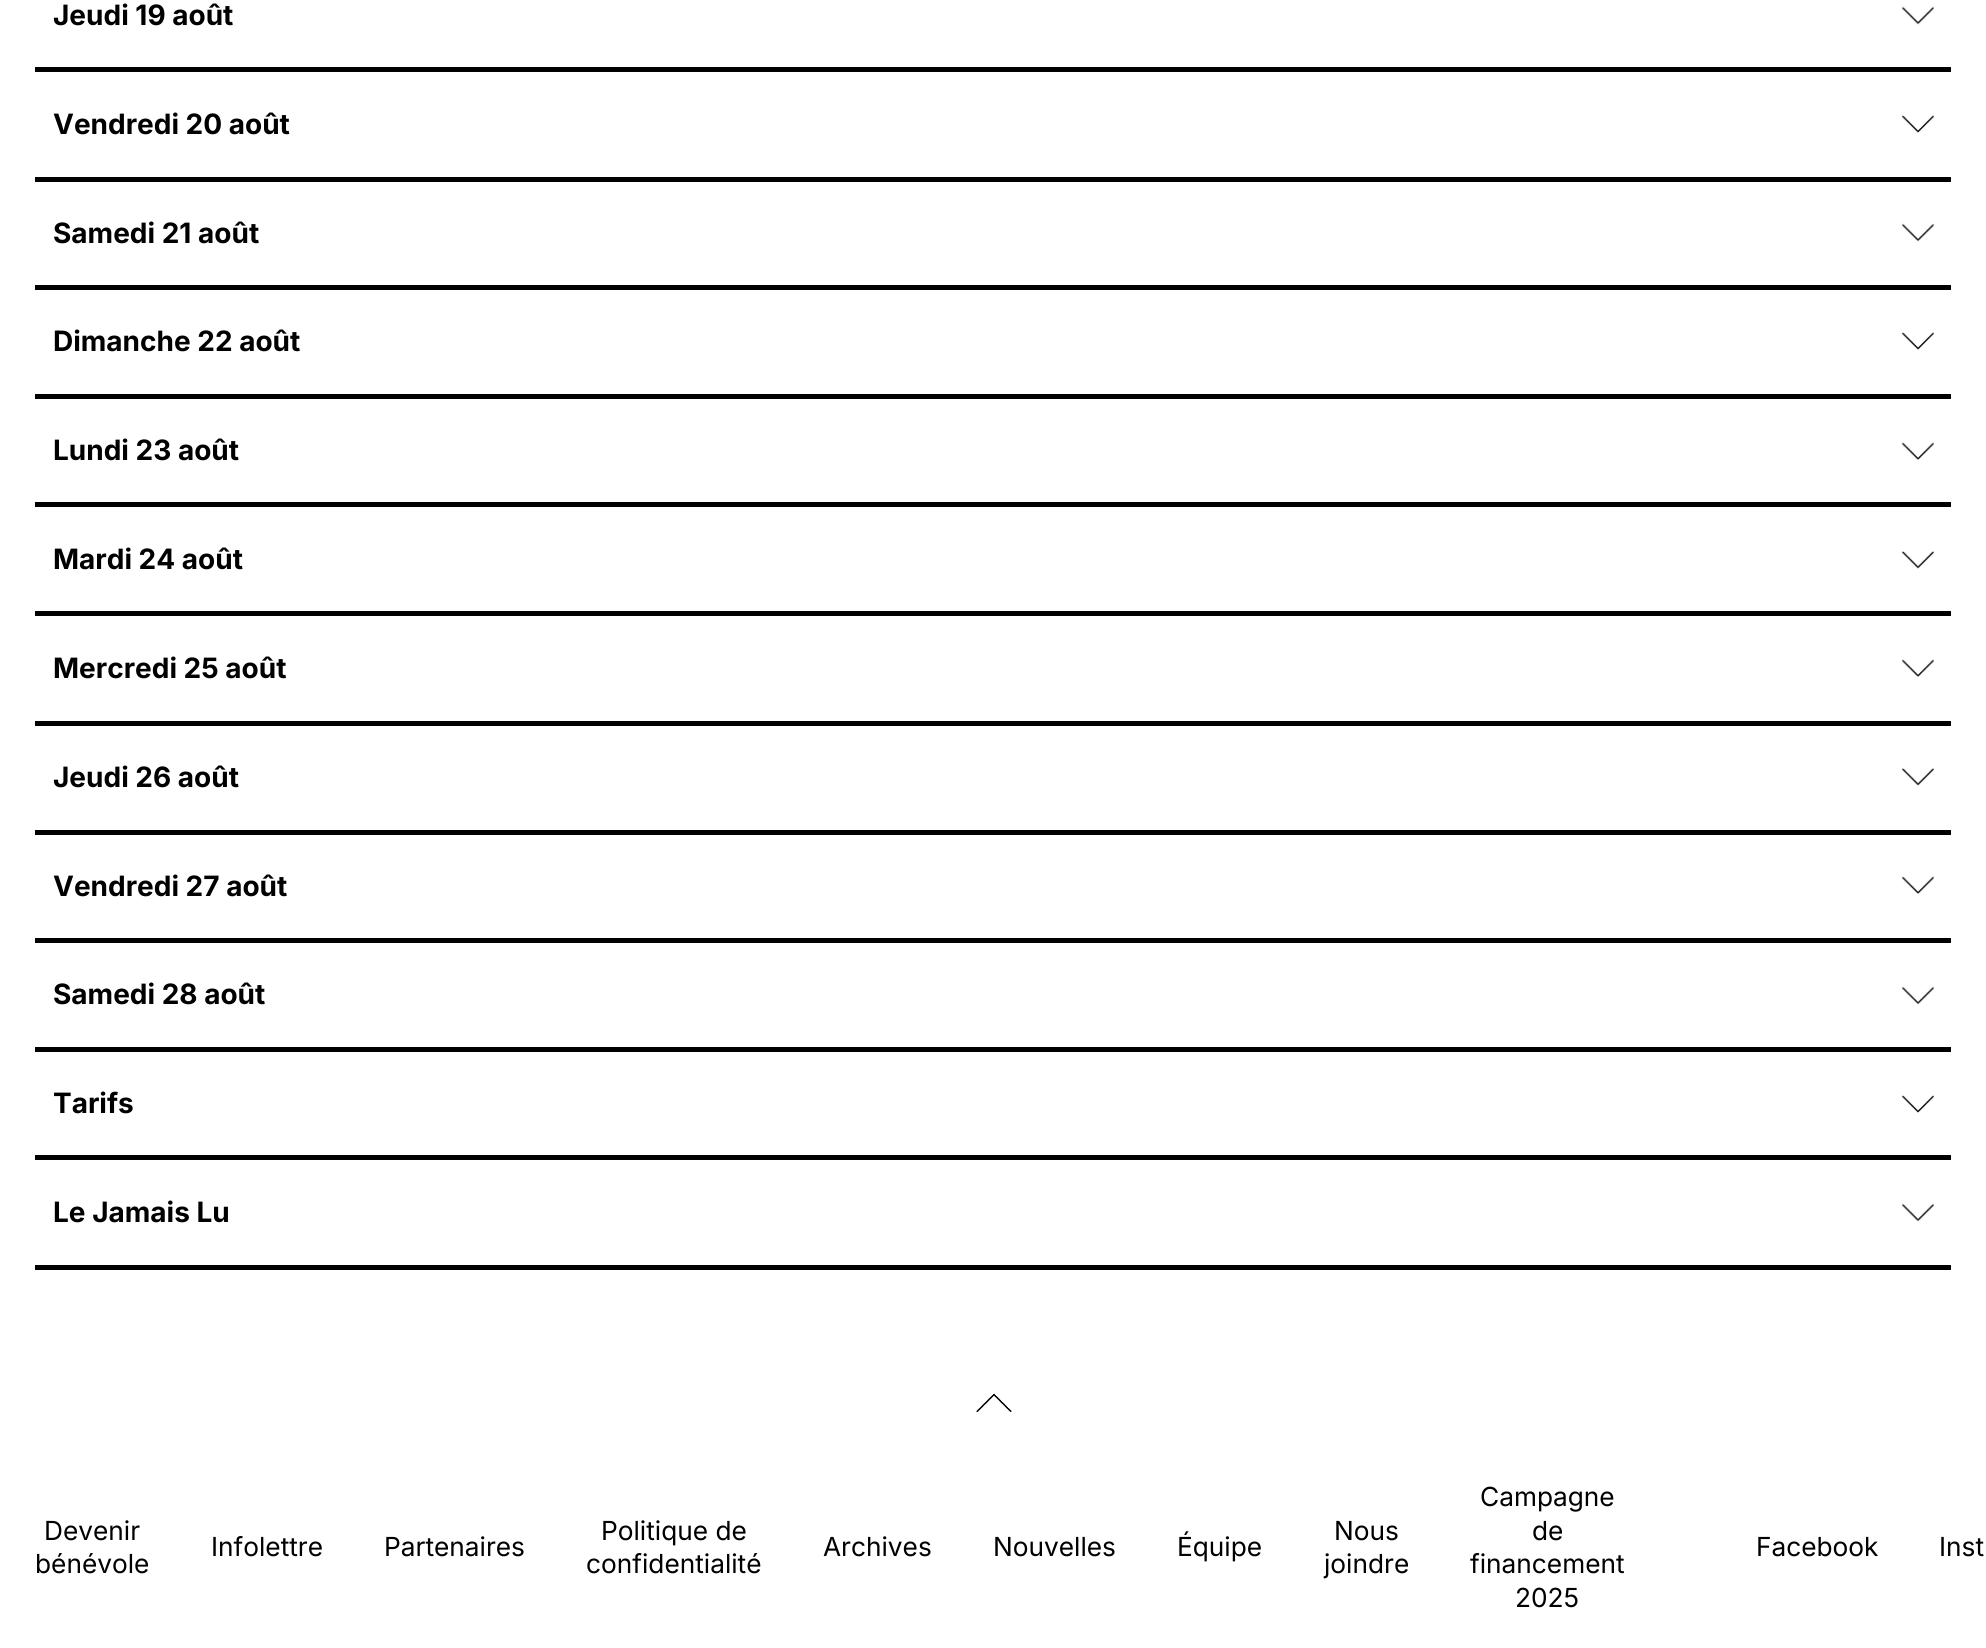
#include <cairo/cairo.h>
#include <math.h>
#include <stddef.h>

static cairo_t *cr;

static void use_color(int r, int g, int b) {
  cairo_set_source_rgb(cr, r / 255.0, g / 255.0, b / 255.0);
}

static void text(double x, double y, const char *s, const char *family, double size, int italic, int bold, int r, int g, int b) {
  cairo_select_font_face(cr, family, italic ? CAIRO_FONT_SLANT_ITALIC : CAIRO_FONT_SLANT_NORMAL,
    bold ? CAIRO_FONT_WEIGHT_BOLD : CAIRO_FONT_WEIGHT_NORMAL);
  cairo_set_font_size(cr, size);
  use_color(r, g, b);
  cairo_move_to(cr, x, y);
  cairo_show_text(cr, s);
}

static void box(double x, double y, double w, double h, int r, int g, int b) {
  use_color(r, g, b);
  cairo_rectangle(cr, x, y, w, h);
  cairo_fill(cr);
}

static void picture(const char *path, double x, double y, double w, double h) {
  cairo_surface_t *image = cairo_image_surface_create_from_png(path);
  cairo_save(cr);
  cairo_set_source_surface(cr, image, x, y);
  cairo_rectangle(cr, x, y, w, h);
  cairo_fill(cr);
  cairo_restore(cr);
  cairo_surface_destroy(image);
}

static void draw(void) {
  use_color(255, 255, 255);
  cairo_paint(cr);
  box(35, 67, 1916, 5, 0, 0, 0);
  picture("img_01.png", 1902, 6, 32, 19);
  box(35, 177, 1916, 5, 0, 0, 0);
  picture("img_02.png", 1902, 115, 32, 18);
  box(35, 285, 1916, 5, 0, 0, 0);
  picture("img_01.png", 1902, 223, 32, 19);
  box(35, 394, 1916, 5, 0, 0, 0);
  picture("img_02.png", 1902, 332, 32, 18);
  box(35, 502, 1916, 5, 0, 0, 0);
  picture("img_03.png", 1902, 442, 32, 18);
  box(35, 611, 1916, 5, 0, 0, 0);
  picture("img_04.png", 1902, 551, 32, 18);
  box(35, 721, 1916, 5, 0, 0, 0);
  picture("img_03.png", 1902, 659, 32, 18);
  box(35, 830, 1916, 5, 0, 0, 0);
  picture("img_04.png", 1902, 768, 32, 18);
  box(35, 938, 1916, 5, 0, 0, 0);
  picture("img_03.png", 1902, 876, 32, 18);
  box(35, 1047, 1916, 5, 0, 0, 0);
  picture("img_01.png", 1902, 986, 32, 19);
  box(35, 1155, 1916, 5, 0, 0, 0);
  picture("img_02.png", 1902, 1095, 32, 18);
  box(35, 1265, 1916, 5, 0, 0, 0);
  picture("img_01.png", 1902, 1203, 32, 19);
  picture("img_05.png", 976, 1393, 36, 19);
  text(53, 25, "Jeudi 19 août", "Inter", 28, 0, 1, 0, 0, 0);
  text(53, 134, "Vendredi 20 août", "Inter", 28, 0, 1, 0, 0, 0);
  text(53, 243, "Samedi 21 août", "Inter", 28, 0, 1, 0, 0, 0);
  text(53, 351, "Dimanche 22 août", "Inter", 28, 0, 1, 0, 0, 0);
  text(53, 460, "Lundi 23 août", "Inter", 28, 0, 1, 0, 0, 0);
  text(53, 569, "Mardi 24 août", "Inter", 28, 0, 1, 0, 0, 0);
  text(53, 678, "Mercredi 25 août", "Inter", 28, 0, 1, 0, 0, 0);
  text(53, 787, "Jeudi 26 août", "Inter", 28, 0, 1, 0, 0, 0);
  text(53, 896, "Vendredi 27 août", "Inter", 28, 0, 1, 0, 0, 0);
  text(53, 1004, "Samedi 28 août", "Inter", 28, 0, 1, 0, 0, 0);
  text(53, 1113, "Tarifs", "Inter", 28, 0, 1, 0, 0, 0);
  text(53, 1222, "Le Jamais Lu", "Inter", 28, 0, 1, 0, 0, 0);
  text(44, 1540, "Devenir", "Inter", 26.25, 0, 0, 0, 0, 0);
  text(35, 1573, "bénévole", "Inter", 26.25, 0, 0, 0, 0, 0);
  text(211, 1556, "Infolettre", "Inter", 26.25, 0, 0, 0, 0, 0);
  text(384, 1556, "Partenaires", "Inter", 26.25, 0, 0, 0, 0, 0);
  text(601, 1540, "Politique de", "Inter", 26.25, 0, 0, 0, 0, 0);
  text(586, 1573, "confidentialité", "Inter", 26.25, 0, 0, 0, 0, 0);
  text(823, 1556, "Archives", "Inter", 26.25, 0, 0, 0, 0, 0);
  text(993, 1556, "Nouvelles", "Inter", 26.25, 0, 0, 0, 0, 0);
  text(1177, 1556, "Équipe", "Inter", 26.25, 0, 0, 0, 0, 0);
  text(1334, 1540, "Nous", "Inter", 26.25, 0, 0, 0, 0, 0);
  text(1324, 1573, "joindre", "Inter", 26.25, 0, 0, 0, 0, 0);
  text(1480, 1506, "Campagne", "Inter", 26.25, 0, 0, 0, 0, 0);
  text(1532, 1540, "de", "Inter", 26.25, 0, 0, 0, 0, 0);
  text(1470, 1573, "financement", "Inter", 26.25, 0, 0, 0, 0, 0);
  text(1515, 1607, "2025", "Inter", 26.25, 0, 0, 0, 0, 0);
  text(1756, 1556, "Facebook", "Inter", 26.25, 0, 0, 0, 0, 0);
  text(1939, 1556, "Inst", "Inter", 26.25, 0, 0, 0, 0, 0);
}

int main(void) {
  cairo_surface_t *surface = cairo_image_surface_create(CAIRO_FORMAT_RGB24, 1986, 1648);
  cr = cairo_create(surface);
  cairo_font_options_t *options = cairo_font_options_create();
  cairo_font_options_set_hint_metrics(options, CAIRO_HINT_METRICS_OFF);
  cairo_font_options_set_hint_style(options, CAIRO_HINT_STYLE_NONE);
  cairo_set_font_options(cr, options);
  cairo_set_miter_limit(cr, 4);
  draw();
  cairo_surface_write_to_png(surface, "out.png");
  cairo_font_options_destroy(options);
  cairo_destroy(cr);
  cairo_surface_destroy(surface);
  return 0;
}
